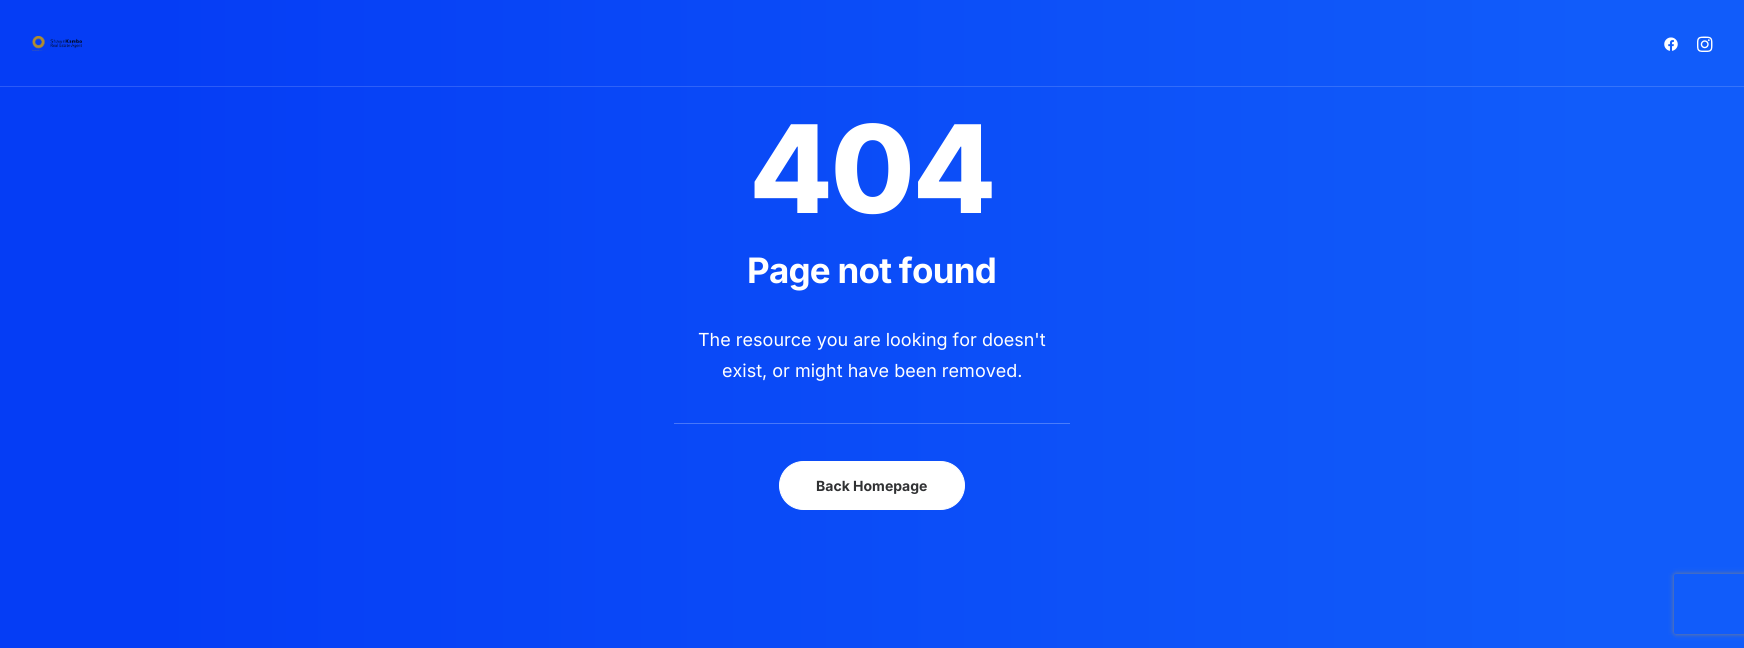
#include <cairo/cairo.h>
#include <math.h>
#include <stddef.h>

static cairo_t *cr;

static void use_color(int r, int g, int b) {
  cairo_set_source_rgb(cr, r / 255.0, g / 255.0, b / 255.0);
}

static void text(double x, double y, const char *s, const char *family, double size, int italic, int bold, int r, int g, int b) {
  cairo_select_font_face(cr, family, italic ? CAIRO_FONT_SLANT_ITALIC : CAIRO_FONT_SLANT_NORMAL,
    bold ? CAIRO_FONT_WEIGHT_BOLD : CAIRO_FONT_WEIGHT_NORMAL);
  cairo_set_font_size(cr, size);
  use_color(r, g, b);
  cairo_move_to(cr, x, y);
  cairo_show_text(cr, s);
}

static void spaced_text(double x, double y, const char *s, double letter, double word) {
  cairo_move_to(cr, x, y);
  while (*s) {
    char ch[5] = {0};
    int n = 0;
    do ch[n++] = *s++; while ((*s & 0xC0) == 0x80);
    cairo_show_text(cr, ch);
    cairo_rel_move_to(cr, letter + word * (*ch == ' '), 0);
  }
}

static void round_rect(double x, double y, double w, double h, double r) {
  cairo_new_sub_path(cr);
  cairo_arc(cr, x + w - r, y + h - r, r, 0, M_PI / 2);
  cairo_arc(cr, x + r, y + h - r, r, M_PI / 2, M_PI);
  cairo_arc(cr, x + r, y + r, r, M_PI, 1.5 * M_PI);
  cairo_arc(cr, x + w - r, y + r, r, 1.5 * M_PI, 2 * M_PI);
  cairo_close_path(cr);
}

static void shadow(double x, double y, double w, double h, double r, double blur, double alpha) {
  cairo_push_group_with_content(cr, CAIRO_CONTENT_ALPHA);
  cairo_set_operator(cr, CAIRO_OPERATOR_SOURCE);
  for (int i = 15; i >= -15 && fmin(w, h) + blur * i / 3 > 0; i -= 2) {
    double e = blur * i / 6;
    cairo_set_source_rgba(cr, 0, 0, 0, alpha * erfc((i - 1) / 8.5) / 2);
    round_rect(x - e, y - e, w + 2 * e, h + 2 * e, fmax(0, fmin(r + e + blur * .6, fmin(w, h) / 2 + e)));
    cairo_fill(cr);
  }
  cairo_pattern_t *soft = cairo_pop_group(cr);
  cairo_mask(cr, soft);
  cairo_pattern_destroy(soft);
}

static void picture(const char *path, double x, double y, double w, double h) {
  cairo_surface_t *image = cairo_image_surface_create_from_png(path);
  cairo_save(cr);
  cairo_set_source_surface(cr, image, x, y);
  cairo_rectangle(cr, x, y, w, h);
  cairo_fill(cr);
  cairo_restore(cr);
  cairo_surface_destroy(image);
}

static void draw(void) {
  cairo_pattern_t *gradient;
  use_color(255, 255, 255);
  cairo_paint(cr);
  gradient = cairo_pattern_create_linear(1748, 324, -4, 324);
  cairo_pattern_add_color_stop_rgba(gradient, 0.09, 0.067, 0.361, 0.98, 1);
  cairo_pattern_add_color_stop_rgba(gradient, 0.91, 0.02, 0.239, 0.961, 1);
  cairo_set_source(cr, gradient);
  cairo_pattern_destroy(gradient);
  cairo_rectangle(cr, 0, 0, 1744, 648);
  cairo_fill(cr);
  picture("img_01.png", 32, 36, 50, 15);
  picture("img_02.png", 1664, 37, 14, 14);
  picture("img_03.png", 1697, 36, 16, 16);
  gradient = cairo_pattern_create_linear(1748, 324, -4, 324);
  cairo_pattern_add_color_stop_rgba(gradient, 0.09, 0.208, 0.455, 0.984, 1);
  cairo_pattern_add_color_stop_rgba(gradient, 0.91, 0.169, 0.353, 0.969, 1);
  cairo_set_source(cr, gradient);
  cairo_pattern_destroy(gradient);
  cairo_rectangle(cr, 0, 86, 1744, 1);
  cairo_fill(cr);
  gradient = cairo_pattern_create_linear(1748, 324, -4, 324);
  cairo_pattern_add_color_stop_rgba(gradient, 0.09, 0.302, 0.522, 0.984, 1);
  cairo_pattern_add_color_stop_rgba(gradient, 0.91, 0.267, 0.431, 0.973, 1);
  cairo_set_source(cr, gradient);
  cairo_pattern_destroy(gradient);
  cairo_rectangle(cr, 674, 423, 396, 1);
  cairo_fill(cr);
  use_color(255, 255, 255);
  round_rect(779.5, 461.5, 185, 48, 24);
  cairo_fill_preserve(cr);
  cairo_set_line_width(cr, 1);
  cairo_stroke(cr);
  cairo_save(cr);
  cairo_set_fill_rule(cr, CAIRO_FILL_RULE_EVEN_ODD);
  cairo_new_path(cr);
  cairo_move_to(cr, 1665, 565);
  cairo_line_to(cr, 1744, 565);
  cairo_line_to(cr, 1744, 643);
  cairo_line_to(cr, 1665, 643);
  cairo_close_path(cr);
  cairo_move_to(cr, 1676, 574);
  cairo_line_to(cr, 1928, 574);
  cairo_curve_to(cr, 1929, 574, 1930, 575, 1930, 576);
  cairo_line_to(cr, 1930, 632);
  cairo_curve_to(cr, 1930, 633, 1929, 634, 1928, 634);
  cairo_line_to(cr, 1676, 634);
  cairo_curve_to(cr, 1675, 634, 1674, 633, 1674, 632);
  cairo_line_to(cr, 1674, 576);
  cairo_curve_to(cr, 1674, 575, 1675, 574, 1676, 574);
  cairo_close_path(cr);
  cairo_clip(cr);
  use_color(128, 128, 128);
  shadow(1674, 574, 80, 60, 2, 2.5, 1);
  cairo_restore(cr);
  cairo_select_font_face(cr, "Inter ExtraBold", CAIRO_FONT_SLANT_NORMAL, CAIRO_FONT_WEIGHT_NORMAL);
  cairo_set_font_size(cr, 122);
  spaced_text(749, 213, "404", -2.5, 0);
  cairo_select_font_face(cr, "Inter", CAIRO_FONT_SLANT_NORMAL, CAIRO_FONT_WEIGHT_BOLD);
  cairo_set_font_size(cr, 35);
  spaced_text(747, 283, "Page not found", -0.75, 0);
  text(698, 346, "The resource you are looking for doesn't", "Inter", 18, 0, 0, 255, 255, 255);
  text(722, 377, "exist, or might have been removed.", "Inter", 18, 0, 0, 255, 255, 255);
  text(816, 491, "Back Homepage", "Inter", 14, 0, 1, 48, 49, 51);
}

int main(void) {
  cairo_surface_t *surface = cairo_image_surface_create(CAIRO_FORMAT_RGB24, 1744, 648);
  cr = cairo_create(surface);
  cairo_font_options_t *options = cairo_font_options_create();
  cairo_font_options_set_hint_metrics(options, CAIRO_HINT_METRICS_OFF);
  cairo_font_options_set_hint_style(options, CAIRO_HINT_STYLE_NONE);
  cairo_set_font_options(cr, options);
  cairo_set_miter_limit(cr, 4);
  draw();
  cairo_surface_write_to_png(surface, "out.png");
  cairo_font_options_destroy(options);
  cairo_destroy(cr);
  cairo_surface_destroy(surface);
  return 0;
}
